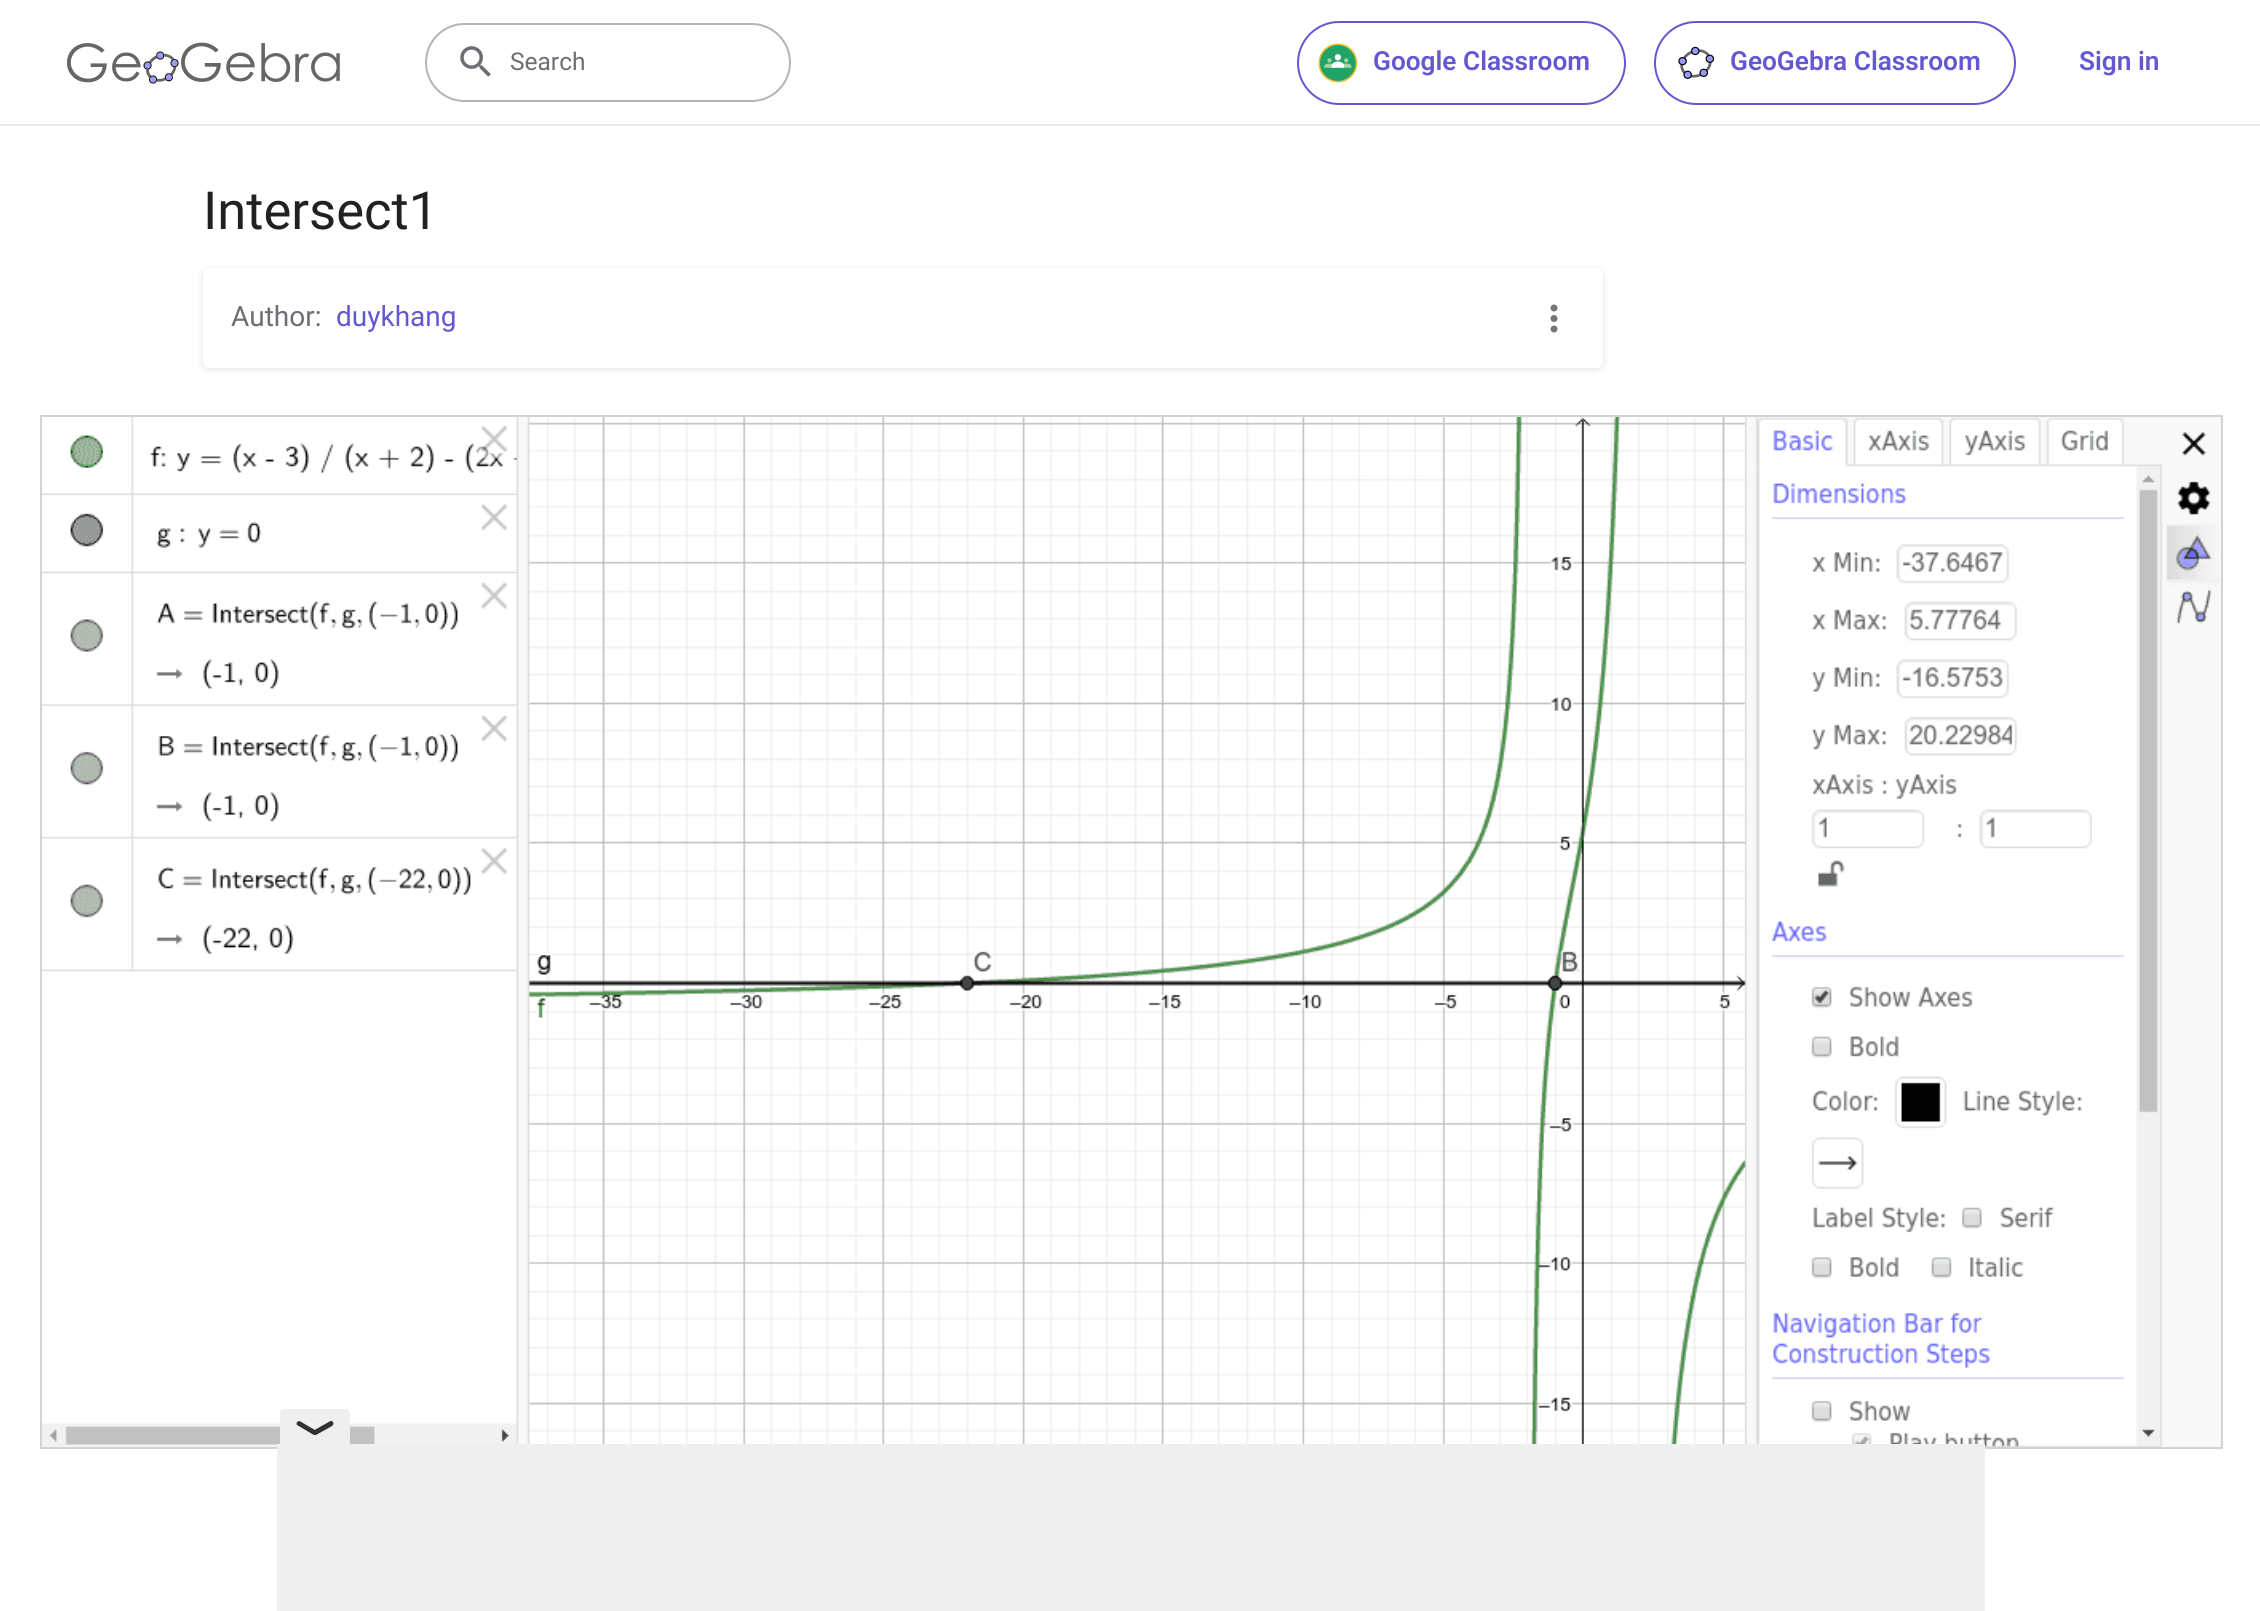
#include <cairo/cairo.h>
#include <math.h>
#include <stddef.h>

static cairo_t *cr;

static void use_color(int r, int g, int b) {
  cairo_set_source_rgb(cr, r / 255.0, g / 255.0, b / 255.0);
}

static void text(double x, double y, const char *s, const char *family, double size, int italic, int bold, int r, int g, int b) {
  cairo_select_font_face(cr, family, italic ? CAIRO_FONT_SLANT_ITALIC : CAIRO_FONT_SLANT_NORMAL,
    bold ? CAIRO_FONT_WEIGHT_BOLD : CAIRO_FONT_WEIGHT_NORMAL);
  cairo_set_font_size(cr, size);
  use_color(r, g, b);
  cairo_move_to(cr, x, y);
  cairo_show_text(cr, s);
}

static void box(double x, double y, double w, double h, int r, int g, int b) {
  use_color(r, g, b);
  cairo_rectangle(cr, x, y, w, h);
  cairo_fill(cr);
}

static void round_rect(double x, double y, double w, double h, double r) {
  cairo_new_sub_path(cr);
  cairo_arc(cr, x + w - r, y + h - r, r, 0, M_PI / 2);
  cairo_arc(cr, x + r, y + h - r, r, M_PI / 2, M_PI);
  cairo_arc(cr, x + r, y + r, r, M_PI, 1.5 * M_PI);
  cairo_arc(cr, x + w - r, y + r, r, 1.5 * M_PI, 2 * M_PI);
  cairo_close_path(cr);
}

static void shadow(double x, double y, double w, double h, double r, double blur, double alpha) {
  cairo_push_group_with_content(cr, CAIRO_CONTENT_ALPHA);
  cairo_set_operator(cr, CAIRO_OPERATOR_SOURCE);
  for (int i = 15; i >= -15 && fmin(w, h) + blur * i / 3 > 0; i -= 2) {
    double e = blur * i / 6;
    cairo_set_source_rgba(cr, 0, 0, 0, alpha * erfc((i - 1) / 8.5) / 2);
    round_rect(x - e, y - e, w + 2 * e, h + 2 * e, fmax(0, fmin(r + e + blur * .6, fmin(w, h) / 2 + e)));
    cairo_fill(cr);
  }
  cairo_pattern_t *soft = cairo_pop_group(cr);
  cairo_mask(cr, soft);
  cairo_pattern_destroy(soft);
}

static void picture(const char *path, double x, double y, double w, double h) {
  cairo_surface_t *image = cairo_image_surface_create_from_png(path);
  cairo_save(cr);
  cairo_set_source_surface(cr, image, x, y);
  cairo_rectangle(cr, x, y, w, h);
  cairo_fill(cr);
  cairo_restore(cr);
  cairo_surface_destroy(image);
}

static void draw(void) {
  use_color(255, 255, 255);
  cairo_paint(cr);
  box(0, 124, 2260, 2, 230, 230, 235);
  picture("img_01.png", 67, 42, 273, 42);
  round_rect(426, 24, 364, 77, 38.5);
  use_color(180, 179, 186);
  cairo_stroke(cr);
  picture("img_02.png", 460, 46, 31, 31);
  round_rect(1298, 22, 327, 82, 41);
  use_color(101, 87, 210);
  cairo_stroke(cr);
  picture("img_03.png", 1318, 43, 40, 40);
  round_rect(1655, 22, 360, 82, 41);
  cairo_stroke(cr);
  picture("img_04.png", 1678, 46, 37, 33);
  use_color(28, 28, 31);
  shadow(203, 270, 1400, 99, 7, 3.5, 0.14);
  use_color(255, 255, 255);
  round_rect(203, 268, 1400, 100, 7);
  cairo_fill(cr);
  picture("img_05.png", 1550, 304, 8, 29);
  picture("img_06.png", 42, 417, 2179, 1030);
  cairo_rectangle(cr, 41, 416, 2181, 1032);
  use_color(211, 211, 211);
  cairo_stroke(cr);
  use_color(239, 239, 239);
  cairo_new_path(cr);
  cairo_move_to(cr, 284, 1409);
  cairo_line_to(cr, 346, 1409);
  cairo_curve_to(cr, 348, 1409, 350, 1411, 350, 1413);
  cairo_line_to(cr, 350, 1444);
  cairo_line_to(cr, 280, 1444);
  cairo_line_to(cr, 280, 1413);
  cairo_curve_to(cr, 280, 1411, 282, 1409, 284, 1409);
  cairo_close_path(cr);
  cairo_fill(cr);
  use_color(49, 49, 49);
  cairo_new_path(cr);
  cairo_move_to(cr, 300.5, 1421.5);
  cairo_line_to(cr, 316.5, 1431);
  cairo_curve_to(cr, 318, 1433, 315.5, 1436, 313, 1434.5);
  cairo_line_to(cr, 297, 1425);
  cairo_curve_to(cr, 295.5, 1423, 298, 1420, 300.5, 1421.5);
  cairo_close_path(cr);
  cairo_fill(cr);
  cairo_new_path(cr);
  cairo_move_to(cr, 314.5, 1430);
  cairo_line_to(cr, 330.5, 1421);
  cairo_curve_to(cr, 333.5, 1420.5, 334.5, 1424.5, 332, 1426);
  cairo_line_to(cr, 316, 1435);
  cairo_curve_to(cr, 313.5, 1435.5, 312, 1431.5, 314.5, 1430);
  cairo_close_path(cr);
  cairo_fill(cr);
  box(277, 1444, 1708, 167, 239, 239, 239);
  text(510, 70, "Search", "Roboto", 24.5, 0, 0, 110, 109, 115);
  text(1373, 70, "Google Classroom", "Roboto SemiBold", 26.25, 0, 0, 101, 87, 210);
  text(1730, 70, "GeoGebra Classroom", "Roboto SemiBold", 26.25, 0, 0, 101, 87, 210);
  text(2079, 70, "Sign in", "Roboto SemiBold", 26.25, 0, 0, 101, 87, 210);
  text(203, 229, "Intersect1", "Roboto", 52.5, 0, 0, 33, 33, 33);
  text(231, 326, "Author:", "Roboto", 28, 0, 0, 110, 109, 115);
  text(336, 326, "duykhang", "Roboto", 28, 0, 0, 101, 87, 210);
}

int main(void) {
  cairo_surface_t *surface = cairo_image_surface_create(CAIRO_FORMAT_RGB24, 2260, 1611);
  cr = cairo_create(surface);
  cairo_font_options_t *options = cairo_font_options_create();
  cairo_font_options_set_hint_metrics(options, CAIRO_HINT_METRICS_OFF);
  cairo_font_options_set_hint_style(options, CAIRO_HINT_STYLE_NONE);
  cairo_set_font_options(cr, options);
  cairo_set_miter_limit(cr, 4);
  draw();
  cairo_surface_write_to_png(surface, "out.png");
  cairo_font_options_destroy(options);
  cairo_destroy(cr);
  cairo_surface_destroy(surface);
  return 0;
}
